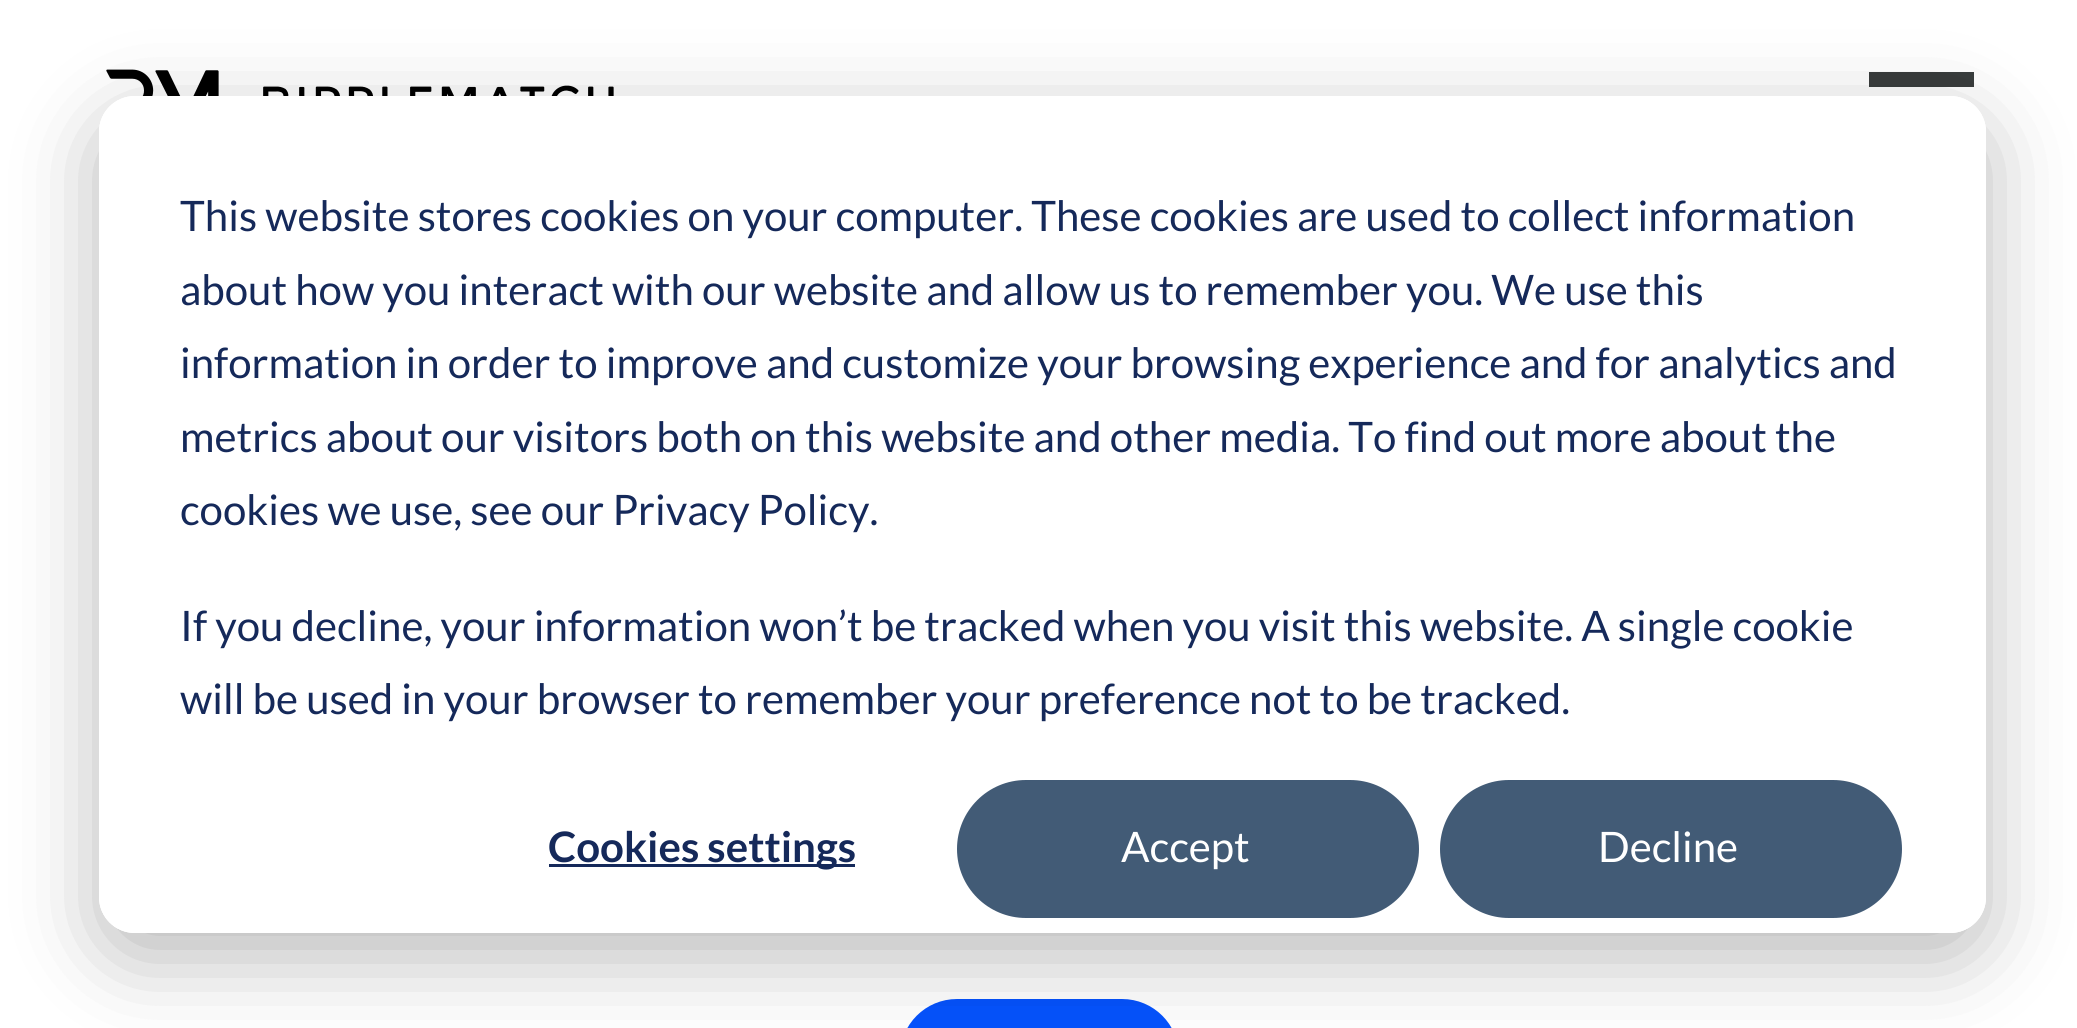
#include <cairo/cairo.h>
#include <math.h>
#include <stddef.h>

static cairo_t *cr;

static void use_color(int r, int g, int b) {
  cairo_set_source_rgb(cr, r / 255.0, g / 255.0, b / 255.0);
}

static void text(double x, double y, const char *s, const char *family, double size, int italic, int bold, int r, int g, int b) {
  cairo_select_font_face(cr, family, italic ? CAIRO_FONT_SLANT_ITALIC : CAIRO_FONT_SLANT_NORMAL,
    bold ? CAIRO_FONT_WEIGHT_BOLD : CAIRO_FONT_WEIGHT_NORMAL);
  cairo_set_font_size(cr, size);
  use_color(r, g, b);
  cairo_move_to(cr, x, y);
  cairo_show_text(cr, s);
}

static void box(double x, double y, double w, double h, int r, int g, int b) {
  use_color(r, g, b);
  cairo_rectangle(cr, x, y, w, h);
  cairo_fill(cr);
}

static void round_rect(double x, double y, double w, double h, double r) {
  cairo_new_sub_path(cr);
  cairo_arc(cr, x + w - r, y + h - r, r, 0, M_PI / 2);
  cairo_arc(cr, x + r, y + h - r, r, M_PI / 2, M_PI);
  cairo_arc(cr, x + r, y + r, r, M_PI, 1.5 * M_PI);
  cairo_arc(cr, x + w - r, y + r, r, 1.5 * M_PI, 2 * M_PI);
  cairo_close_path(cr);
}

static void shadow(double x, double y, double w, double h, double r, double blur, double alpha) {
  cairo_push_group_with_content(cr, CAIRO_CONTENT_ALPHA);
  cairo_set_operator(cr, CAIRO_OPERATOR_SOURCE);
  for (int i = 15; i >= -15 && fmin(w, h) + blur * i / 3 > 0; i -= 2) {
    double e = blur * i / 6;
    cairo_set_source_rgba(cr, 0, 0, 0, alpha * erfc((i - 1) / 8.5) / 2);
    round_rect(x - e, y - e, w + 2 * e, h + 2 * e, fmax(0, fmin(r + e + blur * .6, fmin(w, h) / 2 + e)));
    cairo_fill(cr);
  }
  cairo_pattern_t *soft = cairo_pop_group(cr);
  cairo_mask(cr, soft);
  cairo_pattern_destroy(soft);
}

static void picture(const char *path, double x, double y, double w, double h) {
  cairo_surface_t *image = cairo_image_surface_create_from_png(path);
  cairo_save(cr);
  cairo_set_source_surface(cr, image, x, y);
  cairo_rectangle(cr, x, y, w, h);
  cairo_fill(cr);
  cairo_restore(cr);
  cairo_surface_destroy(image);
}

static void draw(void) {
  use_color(255, 255, 255);
  cairo_paint(cr);
  picture("img_01.png", 106, 69, 508, 27);
  box(1869, 72, 105, 15, 57, 61, 61);
  use_color(5, 83, 254);
  round_rect(900, 999, 279, 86, 57);
  cairo_fill(cr);
  cairo_save(cr);
  cairo_set_fill_rule(cr, CAIRO_FILL_RULE_EVEN_ODD);
  cairo_new_path(cr);
  cairo_move_to(cr, 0, 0);
  cairo_line_to(cr, 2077, 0);
  cairo_line_to(cr, 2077, 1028);
  cairo_line_to(cr, 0, 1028);
  cairo_close_path(cr);
  cairo_move_to(cr, 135, 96);
  cairo_line_to(cr, 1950, 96);
  cairo_curve_to(cr, 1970, 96, 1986, 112, 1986, 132);
  cairo_line_to(cr, 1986, 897);
  cairo_curve_to(cr, 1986, 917, 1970, 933, 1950, 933);
  cairo_line_to(cr, 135, 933);
  cairo_curve_to(cr, 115, 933, 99, 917, 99, 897);
  cairo_line_to(cr, 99, 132);
  cairo_curve_to(cr, 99, 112, 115, 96, 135, 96);
  cairo_close_path(cr);
  cairo_clip(cr);
  use_color(0, 0, 0);
  shadow(99, 120, 1887, 837, 36, 42, 0.28);
  cairo_restore(cr);
  use_color(255, 255, 255);
  round_rect(99, 96, 1887, 837, 36);
  cairo_fill(cr);
  box(549, 864, 306, 3, 21, 41, 90);
  use_color(66, 91, 118);
  round_rect(958.5, 781.5, 459, 135, 67.5);
  cairo_fill_preserve(cr);
  cairo_set_line_width(cr, 3);
  cairo_stroke(cr);
  round_rect(1441.5, 781.5, 459, 135, 67.5);
  cairo_fill_preserve(cr);
  cairo_stroke(cr);
  text(180, 231, "This website stores cookies on your computer. These cookies are used to collect information", "Lato", 42, 0, 0, 21, 41, 90);
  text(180, 305, "about how you interact with our website and allow us to remember you. We use this", "Lato", 42, 0, 0, 21, 41, 90);
  text(180, 378, "information in order to improve and customize your browsing experience and for analytics and", "Lato", 42, 0, 0, 21, 41, 90);
  text(180, 452, "metrics about our visitors both on this website and other media. To find out more about the", "Lato", 42, 0, 0, 21, 41, 90);
  text(180, 525, "cookies we use, see our Privacy Policy.", "Lato", 42, 0, 0, 21, 41, 90);
  text(180, 641, "If you decline, your information won’t be tracked when you visit this website. A single cookie", "Lato", 42, 0, 0, 21, 41, 90);
  text(180, 714, "will be used in your browser to remember your preference not to be tracked.", "Lato", 42, 0, 0, 21, 41, 90);
  text(548, 862, "Cookies settings", "Lato", 42, 0, 1, 21, 41, 90);
  text(1121, 862, "Accept", "Lato", 42, 0, 0, 255, 255, 255);
  text(1598, 862, "Decline", "Lato", 42, 0, 0, 255, 255, 255);
}

int main(void) {
  cairo_surface_t *surface = cairo_image_surface_create(CAIRO_FORMAT_RGB24, 2077, 1028);
  cr = cairo_create(surface);
  cairo_font_options_t *options = cairo_font_options_create();
  cairo_font_options_set_hint_metrics(options, CAIRO_HINT_METRICS_OFF);
  cairo_font_options_set_hint_style(options, CAIRO_HINT_STYLE_NONE);
  cairo_set_font_options(cr, options);
  cairo_set_miter_limit(cr, 4);
  draw();
  cairo_surface_write_to_png(surface, "out.png");
  cairo_font_options_destroy(options);
  cairo_destroy(cr);
  cairo_surface_destroy(surface);
  return 0;
}
